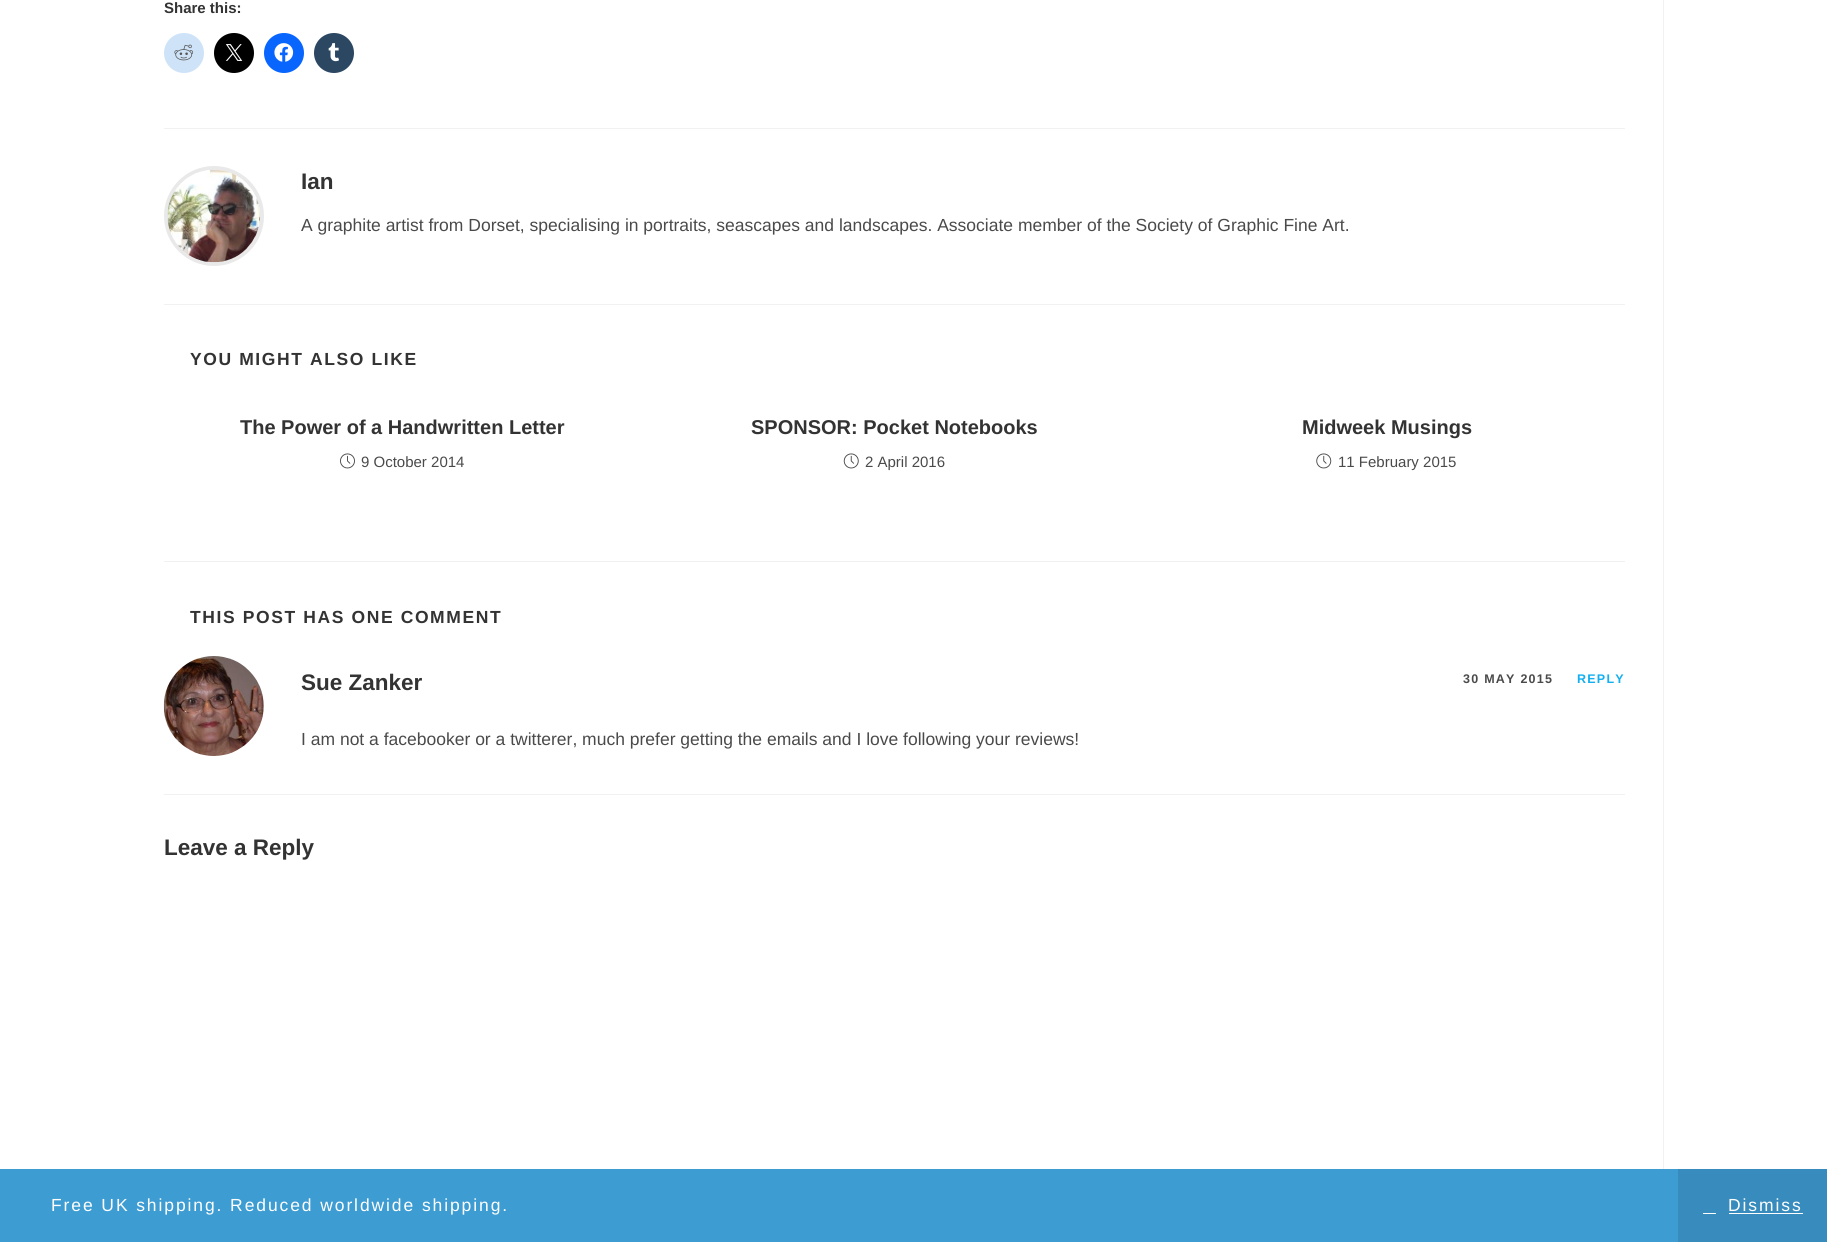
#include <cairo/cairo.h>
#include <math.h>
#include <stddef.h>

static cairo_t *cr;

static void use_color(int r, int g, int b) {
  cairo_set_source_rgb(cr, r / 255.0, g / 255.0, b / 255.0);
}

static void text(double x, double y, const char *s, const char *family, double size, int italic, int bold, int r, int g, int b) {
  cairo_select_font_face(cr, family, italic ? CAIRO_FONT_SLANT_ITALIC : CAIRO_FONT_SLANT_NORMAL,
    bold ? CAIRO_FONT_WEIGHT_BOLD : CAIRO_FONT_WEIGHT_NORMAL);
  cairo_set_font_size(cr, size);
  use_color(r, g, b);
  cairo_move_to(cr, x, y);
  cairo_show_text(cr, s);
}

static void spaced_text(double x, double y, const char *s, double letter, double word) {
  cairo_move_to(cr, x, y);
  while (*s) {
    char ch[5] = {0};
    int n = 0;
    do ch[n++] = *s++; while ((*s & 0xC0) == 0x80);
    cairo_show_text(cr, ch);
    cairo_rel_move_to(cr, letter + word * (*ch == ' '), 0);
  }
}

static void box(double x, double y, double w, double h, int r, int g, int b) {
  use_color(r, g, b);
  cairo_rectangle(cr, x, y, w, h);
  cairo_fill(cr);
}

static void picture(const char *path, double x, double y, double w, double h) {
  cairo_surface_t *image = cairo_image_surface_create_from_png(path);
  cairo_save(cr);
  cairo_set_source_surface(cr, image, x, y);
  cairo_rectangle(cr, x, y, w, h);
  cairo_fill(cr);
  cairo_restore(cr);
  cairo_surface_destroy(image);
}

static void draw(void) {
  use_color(255, 255, 255);
  cairo_paint(cr);
  box(1663, 0, 1, 1169, 241, 241, 241);
  use_color(206, 227, 248);
  cairo_arc(cr, 184, 53, 20, 0, 2 * M_PI);
  cairo_fill(cr);
  picture("img_01.png", 174, 44, 20, 17);
  use_color(0, 0, 0);
  cairo_arc(cr, 234, 53, 20, 0, 2 * M_PI);
  cairo_fill(cr);
  picture("img_02.png", 225, 44, 18, 17);
  use_color(8, 102, 255);
  cairo_arc(cr, 284, 53, 20, 0, 2 * M_PI);
  cairo_fill(cr);
  picture("img_03.png", 274, 43, 20, 19);
  use_color(44, 71, 98);
  cairo_arc(cr, 334, 53, 20, 0, 2 * M_PI);
  cairo_fill(cr);
  picture("img_04.png", 328, 43, 11, 19);
  box(164, 128, 1461, 1, 241, 241, 241);
  cairo_arc(cr, 214, 216, 48, 0, 2 * M_PI);
  use_color(233, 233, 233);
  cairo_set_line_width(cr, 4);
  cairo_stroke(cr);
  picture("img_05.png", 167, 170, 93, 93);
  box(164, 304, 1461, 1, 241, 241, 241);
  picture("img_06.png", 340, 453, 15, 16);
  picture("img_07.png", 843, 453, 16, 16);
  picture("img_08.png", 1316, 453, 16, 16);
  box(164, 561, 1461, 1, 241, 241, 241);
  box(164, 794, 1461, 1, 241, 241, 241);
  picture("img_09.png", 163, 656, 101, 100);
  box(0, 1169, 1678, 73, 61, 156, 210);
  box(1678, 1169, 149, 73, 55, 140, 189);
  box(1729, 1213, 74, 1, 255, 255, 255);
  box(1703, 1213, 13, 1, 255, 255, 255);
  text(164, 13, "Share this:", "Liberation Sans", 15, 0, 1, 51, 51, 51);
  text(301, 189, "Ian", "Liberation Sans", 22.5, 0, 1, 51, 51, 51);
  text(301, 231, "A graphite artist from Dorset, specialising in portraits, seascapes and landscapes. Associate member of the Society of Graphic Fine Art.", "Liberation Sans", 17.5, 0, 0, 74, 74, 74);
  cairo_select_font_face(cr, "Liberation Sans", CAIRO_FONT_SLANT_NORMAL, CAIRO_FONT_WEIGHT_BOLD);
  use_color(51, 51, 51);
  spaced_text(190, 365, "YOU MIGHT ALSO LIKE", 1.6, 0);
  text(240, 434, "The Power of a Handwritten Letter", "Liberation Sans", 20, 0, 1, 51, 51, 51);
  text(361, 467, "9 October 2014", "Liberation Sans", 15, 0, 0, 74, 74, 74);
  text(751, 434, "SPONSOR: Pocket Notebooks", "Liberation Sans", 20, 0, 1, 51, 51, 51);
  text(865, 467, "2 April 2016", "Liberation Sans", 15, 0, 0, 74, 74, 74);
  text(1302, 434, "Midweek Musings", "Liberation Sans", 20, 0, 1, 51, 51, 51);
  text(1338, 467, "11 February 2015", "Liberation Sans", 15, 0, 0, 74, 74, 74);
  cairo_select_font_face(cr, "Liberation Sans", CAIRO_FONT_SLANT_NORMAL, CAIRO_FONT_WEIGHT_BOLD);
  cairo_set_font_size(cr, 17.5);
  use_color(51, 51, 51);
  spaced_text(190, 623, "THIS POST HAS ONE COMMENT", 1.6, 0);
  text(301, 690, "Sue Zanker", "Liberation Sans", 22.5, 0, 1, 51, 51, 51);
  cairo_set_font_size(cr, 12.5);
  use_color(74, 74, 74);
  spaced_text(1463, 683, "30 MAY 2015", 1.25, 0);
  use_color(19, 175, 240);
  spaced_text(1577, 683, "REPLY", 1.25, 0);
  text(301, 745, "I am not a facebooker or a twitterer, much prefer getting the emails and I love following your reviews!", "Liberation Sans", 17.5, 0, 0, 74, 74, 74);
  text(164, 855, "Leave a Reply", "Liberation Sans", 22.5, 0, 1, 51, 51, 51);
  cairo_select_font_face(cr, "Liberation Sans", CAIRO_FONT_SLANT_NORMAL, CAIRO_FONT_WEIGHT_NORMAL);
  cairo_set_font_size(cr, 17.5);
  use_color(255, 255, 255);
  spaced_text(51, 1211, "Free UK shipping. Reduced worldwide shipping.", 1.9, 0);
  spaced_text(1728, 1211, "Dismiss", 1.9, 0);
}

int main(void) {
  cairo_surface_t *surface = cairo_image_surface_create(CAIRO_FORMAT_RGB24, 1827, 1242);
  cr = cairo_create(surface);
  cairo_font_options_t *options = cairo_font_options_create();
  cairo_font_options_set_hint_metrics(options, CAIRO_HINT_METRICS_OFF);
  cairo_font_options_set_hint_style(options, CAIRO_HINT_STYLE_NONE);
  cairo_set_font_options(cr, options);
  cairo_set_miter_limit(cr, 4);
  draw();
  cairo_surface_write_to_png(surface, "out.png");
  cairo_font_options_destroy(options);
  cairo_destroy(cr);
  cairo_surface_destroy(surface);
  return 0;
}
